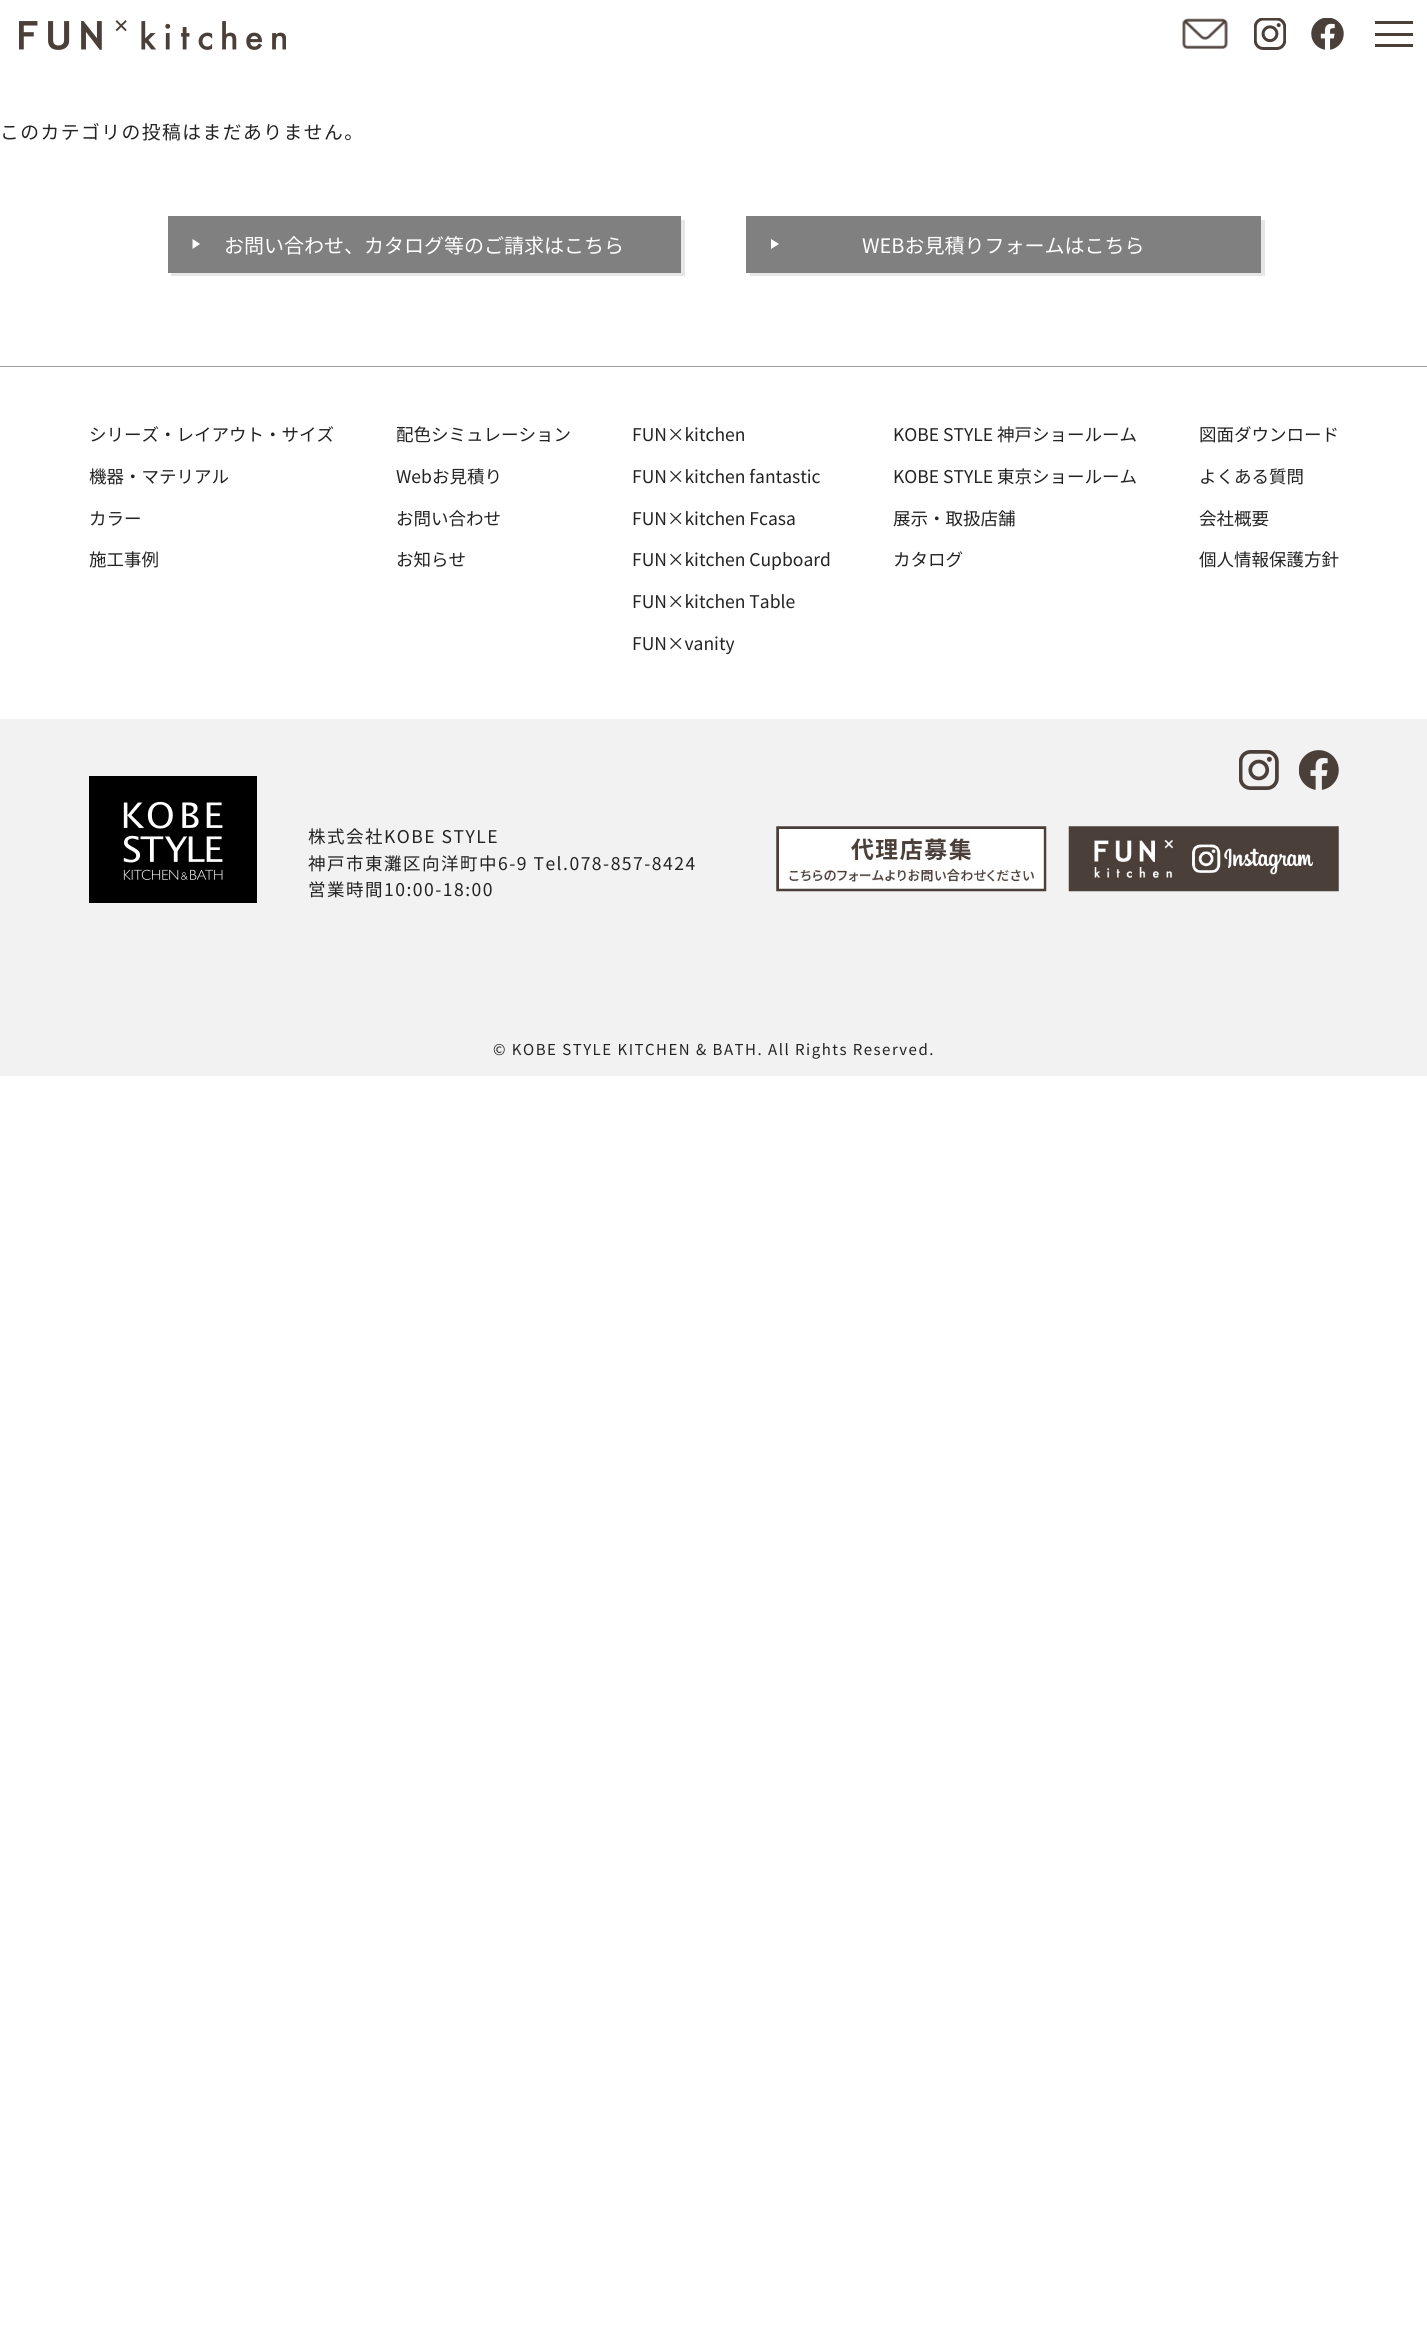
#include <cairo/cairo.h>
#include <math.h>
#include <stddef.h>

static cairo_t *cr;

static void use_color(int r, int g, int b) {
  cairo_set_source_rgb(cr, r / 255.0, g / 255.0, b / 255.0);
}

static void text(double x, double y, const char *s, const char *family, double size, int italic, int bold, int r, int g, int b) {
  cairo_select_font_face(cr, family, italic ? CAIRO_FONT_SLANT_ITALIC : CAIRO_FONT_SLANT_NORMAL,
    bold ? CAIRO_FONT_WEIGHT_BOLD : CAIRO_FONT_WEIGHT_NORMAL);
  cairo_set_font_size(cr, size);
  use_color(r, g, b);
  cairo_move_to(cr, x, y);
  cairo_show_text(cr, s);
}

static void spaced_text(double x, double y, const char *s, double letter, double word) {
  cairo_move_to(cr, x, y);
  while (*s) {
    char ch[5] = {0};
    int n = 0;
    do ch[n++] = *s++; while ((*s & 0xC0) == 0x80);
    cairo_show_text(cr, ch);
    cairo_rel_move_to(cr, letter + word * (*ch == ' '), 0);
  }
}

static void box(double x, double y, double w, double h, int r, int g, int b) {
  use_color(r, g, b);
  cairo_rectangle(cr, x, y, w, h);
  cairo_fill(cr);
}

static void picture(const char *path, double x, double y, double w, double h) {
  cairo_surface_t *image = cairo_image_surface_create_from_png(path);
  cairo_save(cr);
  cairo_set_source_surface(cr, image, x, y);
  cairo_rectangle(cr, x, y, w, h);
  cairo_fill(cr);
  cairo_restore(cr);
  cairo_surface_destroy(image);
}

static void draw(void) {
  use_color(255, 255, 255);
  cairo_paint(cr);
  picture("img_01.png", 19, 20, 267, 30);
  picture("img_02.png", 1182, 18, 46, 31);
  picture("img_03.png", 1254, 18, 32, 32);
  picture("img_04.png", 1311, 18, 33, 32);
  box(1375, 21, 38, 3, 75, 63, 57);
  box(1375, 33, 38, 3, 75, 63, 57);
  box(1375, 44, 38, 3, 75, 63, 57);
  use_color(230, 230, 230);
  cairo_new_path(cr);
  cairo_move_to(cr, 171, 272);
  cairo_line_to(cr, 171, 276);
  cairo_line_to(cr, 685, 276);
  cairo_line_to(cr, 685, 220);
  cairo_line_to(cr, 681, 220);
  cairo_line_to(cr, 681, 272);
  cairo_close_path(cr);
  cairo_fill(cr);
  box(168, 216, 513, 57, 128, 128, 128);
  use_color(255, 255, 255);
  cairo_new_path(cr);
  cairo_move_to(cr, 192.5, 249);
  cairo_line_to(cr, 192.5, 239);
  cairo_line_to(cr, 200, 244);
  cairo_close_path(cr);
  cairo_fill(cr);
  use_color(230, 230, 230);
  cairo_new_path(cr);
  cairo_move_to(cr, 750, 272);
  cairo_line_to(cr, 750, 276);
  cairo_line_to(cr, 1265, 276);
  cairo_line_to(cr, 1265, 220);
  cairo_line_to(cr, 1261, 220);
  cairo_line_to(cr, 1261, 272);
  cairo_close_path(cr);
  cairo_fill(cr);
  box(746, 216, 515, 57, 128, 128, 128);
  use_color(255, 255, 255);
  cairo_new_path(cr);
  cairo_move_to(cr, 771, 249);
  cairo_line_to(cr, 771, 239);
  cairo_line_to(cr, 779, 244);
  cairo_close_path(cr);
  cairo_fill(cr);
  box(0, 366, 1427, 1, 160, 160, 160);
  box(0, 719, 1427, 357, 242, 242, 242);
  picture("img_05.png", 89, 776, 168, 127);
  picture("img_06.png", 1239, 750, 40, 40);
  picture("img_07.png", 1299, 750, 40, 40);
  picture("img_08.png", 776, 826, 271, 66);
  picture("img_09.png", 1068, 826, 271, 66);
  cairo_select_font_face(cr, "Noto Sans JP", CAIRO_FONT_SLANT_NORMAL, CAIRO_FONT_WEIGHT_NORMAL);
  cairo_set_font_size(cr, 18.75);
  use_color(35, 35, 35);
  spaced_text(0, 139, "このカテゴリの投稿はまだありません。", 1.5, 0);
  text(224, 253, "お問い合わせ、カタログ等のご請求はこちら", "Noto Sans JP", 20, 0, 0, 255, 255, 255);
  text(862, 253, "WEBお見積りフォームはこちら", "Noto Sans JP", 20, 0, 0, 255, 255, 255);
  text(89, 441, "シリーズ・レイアウト・サイズ", "Noto Sans JP", 17.5, 0, 0, 35, 35, 35);
  text(89, 483, "機器・マテリアル", "Noto Sans JP", 17.5, 0, 0, 35, 35, 35);
  text(89, 525, "カラー", "Noto Sans JP", 17.5, 0, 0, 35, 35, 35);
  text(89, 566, "施工事例", "Noto Sans JP", 17.5, 0, 0, 35, 35, 35);
  text(396, 441, "配色シミュレーション", "Noto Sans JP", 17.5, 0, 0, 35, 35, 35);
  text(396, 483, "Webお見積り", "Noto Sans JP", 17.5, 0, 0, 35, 35, 35);
  text(396, 525, "お問い合わせ", "Noto Sans JP", 17.5, 0, 0, 35, 35, 35);
  text(396, 566, "お知らせ", "Noto Sans JP", 17.5, 0, 0, 35, 35, 35);
  text(632, 441, "FUN×kitchen", "Noto Sans JP", 17.5, 0, 0, 35, 35, 35);
  text(632, 483, "FUN×kitchen fantastic", "Noto Sans JP", 17.5, 0, 0, 35, 35, 35);
  text(632, 525, "FUN×kitchen Fcasa", "Noto Sans JP", 17.5, 0, 0, 35, 35, 35);
  text(632, 566, "FUN×kitchen Cupboard", "Noto Sans JP", 17.5, 0, 0, 35, 35, 35);
  text(632, 608, "FUN×kitchen Table", "Noto Sans JP", 17.5, 0, 0, 35, 35, 35);
  text(632, 650, "FUN×vanity", "Noto Sans JP", 17.5, 0, 0, 35, 35, 35);
  text(893, 441, "KOBE STYLE 神戸ショールーム", "Noto Sans JP", 17.5, 0, 0, 35, 35, 35);
  text(893, 483, "KOBE STYLE 東京ショールーム", "Noto Sans JP", 17.5, 0, 0, 35, 35, 35);
  text(893, 525, "展示・取扱店舗", "Noto Sans JP", 17.5, 0, 0, 35, 35, 35);
  text(893, 566, "カタログ", "Noto Sans JP", 17.5, 0, 0, 35, 35, 35);
  text(1199, 441, "図面ダウンロード", "Noto Sans JP", 17.5, 0, 0, 35, 35, 35);
  text(1199, 483, "よくある質問", "Noto Sans JP", 17.5, 0, 0, 35, 35, 35);
  text(1199, 525, "会社概要", "Noto Sans JP", 17.5, 0, 0, 35, 35, 35);
  text(1199, 566, "個人情報保護方針", "Noto Sans JP", 17.5, 0, 0, 35, 35, 35);
  spaced_text(308, 843, "株式会社KOBE STYLE", 1.5, 0);
  spaced_text(308, 870, "神戸市東灘区向洋町中6-9 Tel.078-857-8424", 1.5, 0);
  spaced_text(308, 896, "営業時間10:00-18:00", 1.5, 0);
  cairo_set_font_size(cr, 15);
  spaced_text(493, 1055, "© KOBE STYLE KITCHEN & BATH. All Rights Reserved.", 1.5, 0);
}

int main(void) {
  cairo_surface_t *surface = cairo_image_surface_create(CAIRO_FORMAT_RGB24, 1427, 2336);
  cr = cairo_create(surface);
  cairo_font_options_t *options = cairo_font_options_create();
  cairo_font_options_set_hint_metrics(options, CAIRO_HINT_METRICS_OFF);
  cairo_font_options_set_hint_style(options, CAIRO_HINT_STYLE_NONE);
  cairo_set_font_options(cr, options);
  cairo_set_miter_limit(cr, 4);
  draw();
  cairo_surface_write_to_png(surface, "out.png");
  cairo_font_options_destroy(options);
  cairo_destroy(cr);
  cairo_surface_destroy(surface);
  return 0;
}
